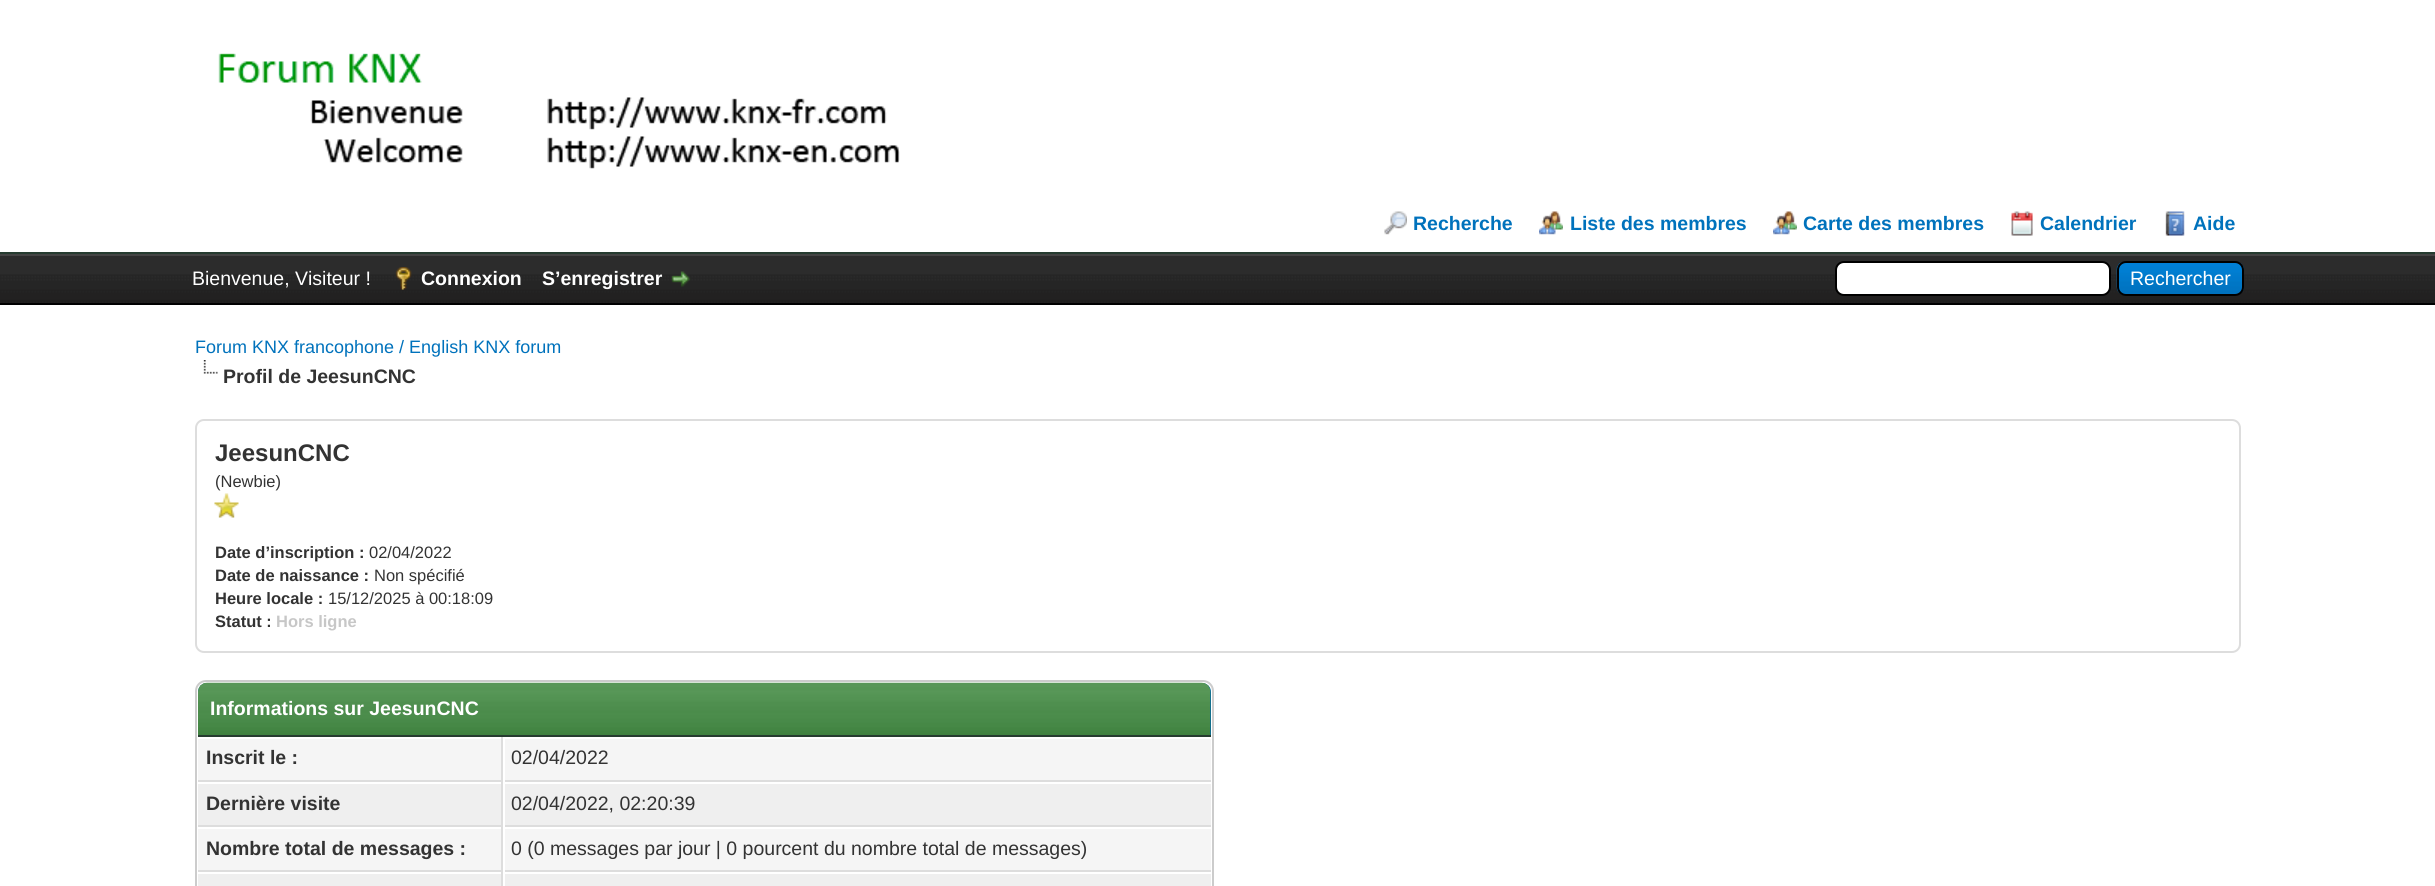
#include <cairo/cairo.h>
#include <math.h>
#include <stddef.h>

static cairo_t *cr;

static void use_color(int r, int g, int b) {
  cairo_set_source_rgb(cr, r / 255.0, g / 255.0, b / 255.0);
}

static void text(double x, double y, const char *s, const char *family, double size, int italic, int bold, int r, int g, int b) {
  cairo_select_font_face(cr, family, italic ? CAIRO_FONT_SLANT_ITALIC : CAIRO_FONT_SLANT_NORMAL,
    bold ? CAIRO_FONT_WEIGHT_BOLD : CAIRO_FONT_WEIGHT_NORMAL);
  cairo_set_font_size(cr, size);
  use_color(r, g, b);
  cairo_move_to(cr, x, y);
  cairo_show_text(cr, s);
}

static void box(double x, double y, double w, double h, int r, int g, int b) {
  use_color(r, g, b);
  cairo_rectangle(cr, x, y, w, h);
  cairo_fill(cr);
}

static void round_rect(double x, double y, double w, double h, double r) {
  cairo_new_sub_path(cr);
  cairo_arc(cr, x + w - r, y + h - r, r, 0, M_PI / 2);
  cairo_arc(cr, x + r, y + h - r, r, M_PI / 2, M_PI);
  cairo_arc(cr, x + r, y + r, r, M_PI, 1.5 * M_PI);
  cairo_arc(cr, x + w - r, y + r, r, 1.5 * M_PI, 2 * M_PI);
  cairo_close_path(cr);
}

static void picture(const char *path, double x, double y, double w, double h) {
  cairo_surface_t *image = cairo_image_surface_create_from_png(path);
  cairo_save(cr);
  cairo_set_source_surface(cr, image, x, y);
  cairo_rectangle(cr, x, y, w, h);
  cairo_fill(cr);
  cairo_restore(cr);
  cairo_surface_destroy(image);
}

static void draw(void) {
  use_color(255, 255, 255);
  cairo_paint(cr);
  box(0, 252, 2435, 2, 38, 60, 48);
  picture("img_01.png", 218, 53, 682, 116);
  picture("img_02.png", 1384, 211, 23, 24);
  picture("img_03.png", 1539, 211, 24, 24);
  picture("img_03.png", 1773, 211, 24, 24);
  picture("img_04.png", 2011, 211, 22, 25);
  picture("img_05.png", 2165, 211, 20, 25);
  picture("img_06.png", 0, 256, 2435, 47);
  box(0, 254, 2435, 2, 68, 68, 68);
  box(0, 303, 2435, 2, 0, 0, 0);
  picture("img_07.png", 395, 267, 17, 23);
  picture("img_08.png", 671, 271, 20, 16);
  use_color(255, 255, 255);
  round_rect(1836, 262, 274, 33, 8);
  cairo_fill_preserve(cr);
  use_color(0, 0, 0);
  cairo_stroke(cr);
  picture("img_09.png", 2116, 262, 128, 34);
  round_rect(2118, 262, 125, 33, 8);
  cairo_stroke(cr);
  picture("img_10.png", 203, 360, 15, 14);
  round_rect(196, 420, 2044, 232, 8);
  use_color(221, 221, 221);
  cairo_stroke(cr);
  picture("img_11.png", 214, 493, 25, 25);
  round_rect(196, 681, 1017, 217, 10);
  use_color(204, 204, 204);
  cairo_stroke(cr);
  use_color(0, 102, 162);
  cairo_new_path(cr);
  cairo_move_to(cr, 207, 683);
  cairo_line_to(cr, 1202, 683);
  cairo_curve_to(cr, 1207, 683, 1211, 687, 1211, 692);
  cairo_line_to(cr, 1211, 737);
  cairo_line_to(cr, 198, 737);
  cairo_line_to(cr, 198, 692);
  cairo_curve_to(cr, 198, 687, 202, 683, 207, 683);
  cairo_close_path(cr);
  cairo_fill(cr);
  picture("img_12.png", 198, 682, 1013, 53);
  box(198, 735, 1013, 2, 38, 60, 48);
  box(198, 739, 303, 41, 245, 245, 245);
  box(501, 737, 2, 149, 221, 221, 221);
  box(198, 780, 1013, 2, 221, 221, 221);
  box(505, 739, 706, 41, 245, 245, 245);
  box(503, 780, 2, 2, 255, 255, 255);
  box(198, 784, 303, 41, 239, 239, 239);
  box(198, 825, 1013, 2, 221, 221, 221);
  box(505, 784, 706, 41, 239, 239, 239);
  box(503, 825, 2, 2, 255, 255, 255);
  box(198, 829, 303, 41, 245, 245, 245);
  box(198, 870, 1013, 2, 221, 221, 221);
  box(505, 829, 706, 41, 245, 245, 245);
  box(503, 870, 2, 2, 255, 255, 255);
  box(198, 874, 303, 12, 239, 239, 239);
  box(505, 874, 706, 12, 239, 239, 239);
  text(1413, 230, "Recherche", "Liberation Sans", 19.5, 0, 1, 0, 114, 188);
  text(1570, 230, "Liste des membres", "Liberation Sans", 19.5, 0, 1, 0, 114, 188);
  text(1803, 230, "Carte des membres", "Liberation Sans", 19.5, 0, 1, 0, 114, 188);
  text(2040, 230, "Calendrier", "Liberation Sans", 19.5, 0, 1, 0, 114, 188);
  text(2193, 230, "Aide", "Liberation Sans", 19.5, 0, 1, 0, 114, 188);
  text(192, 285, "Bienvenue, Visiteur !", "Liberation Sans", 19.5, 0, 0, 255, 255, 255);
  text(421, 285, "Connexion", "Liberation Sans", 19.5, 0, 1, 255, 255, 255);
  text(542, 285, "S’enregistrer", "Liberation Sans", 19.5, 0, 1, 255, 255, 255);
  text(2130, 285, "Rechercher", "Liberation Sans", 19.5, 0, 0, 255, 255, 255);
  text(195, 353, "Forum KNX francophone / English KNX forum", "Liberation Sans", 18, 0, 0, 0, 114, 188);
  text(223, 383, "Profil de JeesunCNC", "Liberation Sans", 19.5, 0, 1, 51, 51, 51);
  text(215, 461, "JeesunCNC", "Liberation Sans", 24, 0, 1, 51, 51, 51);
  text(215, 487, "(Newbie)", "Liberation Sans", 16.5, 0, 0, 51, 51, 51);
  text(215, 558, "Date d’inscription :", "Liberation Sans", 16.5, 0, 1, 51, 51, 51);
  text(369, 558, "02/04/2022", "Liberation Sans", 16.5, 0, 0, 51, 51, 51);
  text(215, 581, "Date de naissance :", "Liberation Sans", 16.5, 0, 1, 51, 51, 51);
  text(374, 581, "Non spécifié", "Liberation Sans", 16.5, 0, 0, 51, 51, 51);
  text(215, 604, "Heure locale :", "Liberation Sans", 16.5, 0, 1, 51, 51, 51);
  text(328, 604, "15/12/2025 à 00:18:09", "Liberation Sans", 16.5, 0, 0, 51, 51, 51);
  text(215, 627, "Statut :", "Liberation Sans", 16.5, 0, 1, 51, 51, 51);
  text(276, 627, "Hors ligne", "Liberation Sans", 16.5, 0, 1, 199, 199, 199);
  text(210, 715, "Informations sur JeesunCNC", "Liberation Sans", 19.5, 0, 1, 255, 255, 255);
  text(206, 764, "Inscrit le :", "Liberation Sans", 19.5, 0, 1, 51, 51, 51);
  text(511, 764, "02/04/2022", "Liberation Sans", 19.5, 0, 0, 51, 51, 51);
  text(206, 810, "Dernière visite", "Liberation Sans", 19.5, 0, 1, 51, 51, 51);
  text(511, 810, "02/04/2022, 02:20:39", "Liberation Sans", 19.5, 0, 0, 51, 51, 51);
  text(206, 855, "Nombre total de messages :", "Liberation Sans", 19.5, 0, 1, 51, 51, 51);
  text(511, 855, "0 (0 messages par jour | 0 pourcent du nombre total de messages)", "Liberation Sans", 19.5, 0, 0, 51, 51, 51);
}

int main(void) {
  cairo_surface_t *surface = cairo_image_surface_create(CAIRO_FORMAT_RGB24, 2435, 886);
  cr = cairo_create(surface);
  cairo_font_options_t *options = cairo_font_options_create();
  cairo_font_options_set_hint_metrics(options, CAIRO_HINT_METRICS_OFF);
  cairo_font_options_set_hint_style(options, CAIRO_HINT_STYLE_NONE);
  cairo_set_font_options(cr, options);
  cairo_set_miter_limit(cr, 4);
  draw();
  cairo_surface_write_to_png(surface, "out.png");
  cairo_font_options_destroy(options);
  cairo_destroy(cr);
  cairo_surface_destroy(surface);
  return 0;
}
